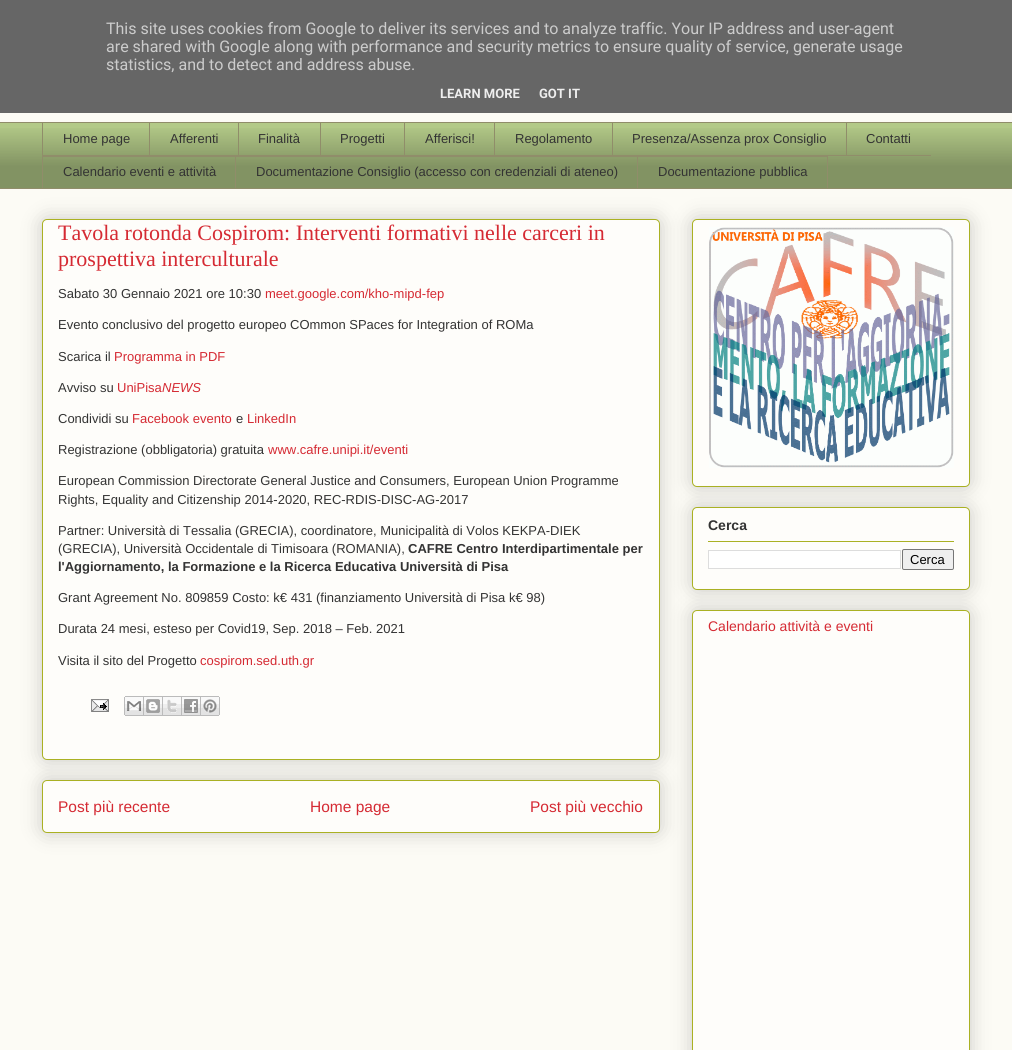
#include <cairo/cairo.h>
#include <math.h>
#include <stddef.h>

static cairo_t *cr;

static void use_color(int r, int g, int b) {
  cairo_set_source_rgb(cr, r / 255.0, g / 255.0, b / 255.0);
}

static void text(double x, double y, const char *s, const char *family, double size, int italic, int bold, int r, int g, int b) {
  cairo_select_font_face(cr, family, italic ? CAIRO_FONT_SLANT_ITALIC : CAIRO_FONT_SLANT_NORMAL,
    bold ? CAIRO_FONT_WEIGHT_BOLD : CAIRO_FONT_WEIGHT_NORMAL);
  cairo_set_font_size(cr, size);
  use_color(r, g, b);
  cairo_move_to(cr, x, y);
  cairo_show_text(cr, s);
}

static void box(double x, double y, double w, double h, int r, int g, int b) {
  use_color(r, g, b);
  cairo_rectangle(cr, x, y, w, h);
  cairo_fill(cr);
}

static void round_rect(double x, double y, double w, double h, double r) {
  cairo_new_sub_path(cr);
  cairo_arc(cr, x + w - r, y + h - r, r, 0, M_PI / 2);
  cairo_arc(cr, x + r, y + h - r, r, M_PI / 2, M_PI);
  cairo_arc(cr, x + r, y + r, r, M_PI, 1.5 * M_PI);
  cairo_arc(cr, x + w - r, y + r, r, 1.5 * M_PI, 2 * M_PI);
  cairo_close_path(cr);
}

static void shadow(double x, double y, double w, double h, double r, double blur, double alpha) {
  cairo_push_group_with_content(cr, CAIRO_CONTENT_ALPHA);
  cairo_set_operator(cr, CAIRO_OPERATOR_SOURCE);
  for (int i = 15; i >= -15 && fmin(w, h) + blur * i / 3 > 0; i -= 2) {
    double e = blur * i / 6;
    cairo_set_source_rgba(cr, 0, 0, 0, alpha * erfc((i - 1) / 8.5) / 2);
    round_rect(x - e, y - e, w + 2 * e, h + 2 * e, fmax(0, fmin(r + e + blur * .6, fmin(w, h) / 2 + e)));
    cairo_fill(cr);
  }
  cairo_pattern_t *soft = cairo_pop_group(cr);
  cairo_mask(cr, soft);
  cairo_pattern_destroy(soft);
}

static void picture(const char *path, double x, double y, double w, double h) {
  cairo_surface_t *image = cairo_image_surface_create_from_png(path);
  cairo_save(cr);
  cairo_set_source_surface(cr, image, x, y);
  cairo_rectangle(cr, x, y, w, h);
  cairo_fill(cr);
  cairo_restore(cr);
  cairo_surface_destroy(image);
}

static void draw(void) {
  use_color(252, 251, 245);
  cairo_paint(cr);
  box(0, 0, 1012, 113, 102, 102, 102);
  box(0, 123, 1012, 65, 179, 202, 136);
  picture("img_01.png", 0, 128, 1012, 60);
  box(0, 122, 1012, 1, 144, 141, 106);
  box(42, 155, 889, 1, 144, 141, 106);
  box(42, 122, 1, 34, 144, 141, 106);
  box(149, 122, 1, 34, 144, 141, 106);
  box(238, 122, 1, 34, 144, 141, 106);
  box(320, 122, 1, 34, 144, 141, 106);
  box(404, 122, 1, 34, 144, 141, 106);
  box(494, 122, 1, 34, 144, 141, 106);
  box(612, 122, 1, 34, 144, 141, 106);
  box(846, 122, 1, 34, 144, 141, 106);
  box(42, 156, 595, 1, 144, 141, 106);
  box(42, 156, 1, 33, 144, 141, 106);
  box(235, 156, 1, 33, 144, 141, 106);
  cairo_rectangle(cr, 637.5, 156.5, 190, 32);
  cairo_set_line_width(cr, 1);
  cairo_stroke(cr);
  box(0, 188, 1012, 1, 144, 141, 106);
  use_color(0, 0, 0);
  shadow(42, 780, 618, 53, 5, 10, 0.2);
  use_color(254, 253, 250);
  round_rect(42.5, 780.5, 617, 52, 4.5);
  cairo_fill_preserve(cr);
  use_color(170, 177, 35);
  cairo_stroke(cr);
  use_color(0, 0, 0);
  shadow(42, 219, 618, 541, 5, 10, 0.2);
  use_color(254, 253, 250);
  round_rect(42.5, 219.5, 617, 540, 4.5);
  cairo_fill_preserve(cr);
  use_color(170, 177, 35);
  cairo_stroke(cr);
  picture("img_02.png", 91, 699, 18, 13);
  picture("img_03.png", 124, 696, 20, 20);
  picture("img_04.png", 144, 696, 19, 20);
  picture("img_05.png", 163, 696, 19, 20);
  picture("img_06.png", 182, 696, 19, 20);
  picture("img_07.png", 201, 696, 19, 20);
  use_color(0, 0, 0);
  shadow(692, 219, 278, 268, 5, 10, 0.2);
  use_color(254, 253, 250);
  round_rect(692.5, 219.5, 277, 267, 4.5);
  cairo_fill_preserve(cr);
  use_color(170, 177, 35);
  cairo_stroke(cr);
  picture("img_08.png", 709, 227, 245, 241);
  use_color(0, 0, 0);
  shadow(692, 507, 278, 83, 5, 10, 0.2);
  use_color(254, 253, 250);
  round_rect(692.5, 507.5, 277, 82, 4.5);
  cairo_fill_preserve(cr);
  use_color(170, 177, 35);
  cairo_stroke(cr);
  box(708, 541, 246, 1, 170, 177, 35);
  use_color(255, 255, 255);
  cairo_rectangle(cr, 708.5, 550.5, 192, 18);
  cairo_fill_preserve(cr);
  use_color(221, 221, 221);
  cairo_stroke(cr);
  use_color(239, 239, 239);
  round_rect(902.5, 549.5, 51, 20, 1.5);
  cairo_fill_preserve(cr);
  use_color(118, 118, 118);
  cairo_stroke(cr);
  use_color(0, 0, 0);
  shadow(692, 610, 278, 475, 5, 10, 0.2);
  use_color(254, 253, 250);
  round_rect(692.5, 610.5, 277, 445, 4.5);
  cairo_fill_preserve(cr);
  use_color(170, 177, 35);
  cairo_stroke(cr);
  text(106, 34, "This site uses cookies from Google to deliver its services and to analyze traffic. Your IP address and user-agent", "Roboto", 16, 0, 0, 204, 204, 204);
  text(106, 52, "are shared with Google along with performance and security metrics to ensure quality of service, generate usage", "Roboto", 16, 0, 0, 204, 204, 204);
  text(106, 70, "statistics, and to detect and address abuse.", "Roboto", 16, 0, 0, 204, 204, 204);
  text(440, 98, "LEARN MORE", "Roboto", 13, 0, 1, 238, 238, 238);
  text(539, 98, "GOT IT", "Roboto", 13, 0, 1, 238, 238, 238);
  text(63, 143, "Home page", "Liberation Sans", 13, 0, 0, 51, 51, 51);
  text(170, 143, "Afferenti", "Liberation Sans", 13, 0, 0, 51, 51, 51);
  text(258, 143, "Finalità", "Liberation Sans", 13, 0, 0, 51, 51, 51);
  text(340, 143, "Progetti", "Liberation Sans", 13, 0, 0, 51, 51, 51);
  text(425, 143, "Afferisci!", "Liberation Sans", 13, 0, 0, 51, 51, 51);
  text(515, 143, "Regolamento", "Liberation Sans", 13, 0, 0, 51, 51, 51);
  text(632, 143, "Presenza/Assenza prox Consiglio", "Liberation Sans", 13, 0, 0, 51, 51, 51);
  text(866, 143, "Contatti", "Liberation Sans", 13, 0, 0, 51, 51, 51);
  text(63, 176, "Calendario eventi e attività", "Liberation Sans", 13, 0, 0, 51, 51, 51);
  text(256, 176, "Documentazione Consiglio (accesso con credenziali di ateneo)", "Liberation Sans", 13, 0, 0, 51, 51, 51);
  text(658, 176, "Documentazione pubblica", "Liberation Sans", 13, 0, 0, 51, 51, 51);
  text(58, 240, "Tavola rotonda Cospirom: Interventi formativi nelle carceri in", "Liberation Serif", 22, 0, 0, 213, 42, 51);
  text(58, 266, "prospettiva interculturale", "Liberation Serif", 22, 0, 0, 213, 42, 51);
  text(58, 298, "Sabato 30 Gennaio 2021 ore 10:30", "Liberation Sans", 13, 0, 0, 51, 51, 51);
  text(265, 298, "meet.google.com/kho-mipd-fep", "Liberation Sans", 13, 0, 0, 213, 42, 51);
  text(58, 329, "Evento conclusivo del progetto europeo COmmon SPaces for Integration of ROMa", "Liberation Sans", 13, 0, 0, 51, 51, 51);
  text(58, 361, "Scarica il", "Liberation Sans", 13, 0, 0, 51, 51, 51);
  text(114, 361, "Programma in PDF", "Liberation Sans", 13, 0, 0, 213, 42, 51);
  text(58, 392, "Avviso su", "Liberation Sans", 13, 0, 0, 51, 51, 51);
  text(117, 392, "UniPisa", "Liberation Sans", 13, 0, 0, 213, 42, 51);
  text(162, 392, "NEWS", "Liberation Sans", 13, 1, 0, 213, 42, 51);
  text(58, 423, "Condividi su", "Liberation Sans", 13, 0, 0, 51, 51, 51);
  text(132, 423, "Facebook evento", "Liberation Sans", 13, 0, 0, 213, 42, 51);
  text(236, 423, "e", "Liberation Sans", 13, 0, 0, 51, 51, 51);
  text(247, 423, "LinkedIn", "Liberation Sans", 13, 0, 0, 213, 42, 51);
  text(58, 454, "Registrazione (obbligatoria) gratuita", "Liberation Sans", 13, 0, 0, 51, 51, 51);
  text(268, 454, "www.cafre.unipi.it/eventi", "Liberation Sans", 13, 0, 0, 213, 42, 51);
  text(58, 485, "European Commission Directorate General Justice and Consumers, European Union Programme", "Liberation Sans", 13, 0, 0, 51, 51, 51);
  text(58, 504, "Rights, Equality and Citizenship 2014-2020, REC-RDIS-DISC-AG-2017", "Liberation Sans", 13, 0, 0, 51, 51, 51);
  text(58, 535, "Partner: Università di Tessalia (GRECIA), coordinatore, Municipalità di Volos KEKPA-DIEK", "Liberation Sans", 13, 0, 0, 51, 51, 51);
  text(58, 553, "(GRECIA), Università Occidentale di Timisoara (ROMANIA),", "Liberation Sans", 13, 0, 0, 51, 51, 51);
  text(408, 553, "CAFRE Centro Interdipartimentale per", "Liberation Sans", 13, 0, 1, 51, 51, 51);
  text(58, 571, "l'Aggiornamento, la Formazione e la Ricerca Educativa Università di Pisa", "Liberation Sans", 13, 0, 1, 51, 51, 51);
  text(58, 602, "Grant Agreement No. 809859 Costo: k€ 431 (finanziamento Università di Pisa k€ 98)", "Liberation Sans", 13, 0, 0, 51, 51, 51);
  text(58, 633, "Durata 24 mesi, esteso per Covid19, Sep. 2018 – Feb. 2021", "Liberation Sans", 13, 0, 0, 51, 51, 51);
  text(58, 665, "Visita il sito del Progetto", "Liberation Sans", 13, 0, 0, 51, 51, 51);
  text(200, 665, "cospirom.sed.uth.gr", "Liberation Sans", 13, 0, 0, 213, 42, 51);
  text(58, 812, "Post più recente", "Liberation Sans", 15.5, 0, 0, 213, 42, 51);
  text(310, 812, "Home page", "Liberation Sans", 15.5, 0, 0, 213, 42, 51);
  text(530, 812, "Post più vecchio", "Liberation Sans", 15.5, 0, 0, 213, 42, 51);
  text(708, 530, "Cerca", "Liberation Sans", 14, 0, 1, 51, 51, 51);
  text(910, 564, "Cerca", "Liberation Sans", 13, 0, 0, 0, 0, 0);
  text(708, 631, "Calendario attività e eventi", "Liberation Sans", 14, 0, 0, 213, 42, 51);
}

int main(void) {
  cairo_surface_t *surface = cairo_image_surface_create(CAIRO_FORMAT_RGB24, 1012, 1050);
  cr = cairo_create(surface);
  cairo_font_options_t *options = cairo_font_options_create();
  cairo_font_options_set_hint_metrics(options, CAIRO_HINT_METRICS_OFF);
  cairo_font_options_set_hint_style(options, CAIRO_HINT_STYLE_NONE);
  cairo_set_font_options(cr, options);
  cairo_set_miter_limit(cr, 4);
  draw();
  cairo_surface_write_to_png(surface, "out.png");
  cairo_font_options_destroy(options);
  cairo_destroy(cr);
  cairo_surface_destroy(surface);
  return 0;
}
